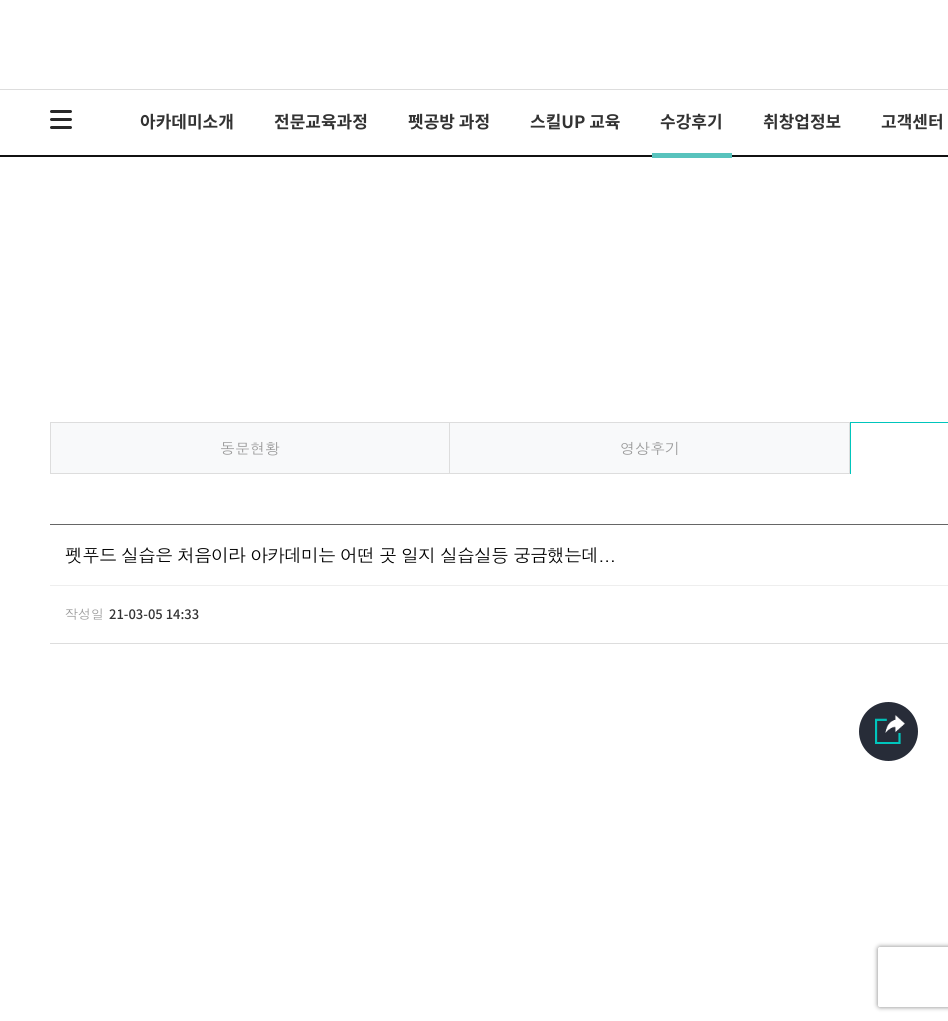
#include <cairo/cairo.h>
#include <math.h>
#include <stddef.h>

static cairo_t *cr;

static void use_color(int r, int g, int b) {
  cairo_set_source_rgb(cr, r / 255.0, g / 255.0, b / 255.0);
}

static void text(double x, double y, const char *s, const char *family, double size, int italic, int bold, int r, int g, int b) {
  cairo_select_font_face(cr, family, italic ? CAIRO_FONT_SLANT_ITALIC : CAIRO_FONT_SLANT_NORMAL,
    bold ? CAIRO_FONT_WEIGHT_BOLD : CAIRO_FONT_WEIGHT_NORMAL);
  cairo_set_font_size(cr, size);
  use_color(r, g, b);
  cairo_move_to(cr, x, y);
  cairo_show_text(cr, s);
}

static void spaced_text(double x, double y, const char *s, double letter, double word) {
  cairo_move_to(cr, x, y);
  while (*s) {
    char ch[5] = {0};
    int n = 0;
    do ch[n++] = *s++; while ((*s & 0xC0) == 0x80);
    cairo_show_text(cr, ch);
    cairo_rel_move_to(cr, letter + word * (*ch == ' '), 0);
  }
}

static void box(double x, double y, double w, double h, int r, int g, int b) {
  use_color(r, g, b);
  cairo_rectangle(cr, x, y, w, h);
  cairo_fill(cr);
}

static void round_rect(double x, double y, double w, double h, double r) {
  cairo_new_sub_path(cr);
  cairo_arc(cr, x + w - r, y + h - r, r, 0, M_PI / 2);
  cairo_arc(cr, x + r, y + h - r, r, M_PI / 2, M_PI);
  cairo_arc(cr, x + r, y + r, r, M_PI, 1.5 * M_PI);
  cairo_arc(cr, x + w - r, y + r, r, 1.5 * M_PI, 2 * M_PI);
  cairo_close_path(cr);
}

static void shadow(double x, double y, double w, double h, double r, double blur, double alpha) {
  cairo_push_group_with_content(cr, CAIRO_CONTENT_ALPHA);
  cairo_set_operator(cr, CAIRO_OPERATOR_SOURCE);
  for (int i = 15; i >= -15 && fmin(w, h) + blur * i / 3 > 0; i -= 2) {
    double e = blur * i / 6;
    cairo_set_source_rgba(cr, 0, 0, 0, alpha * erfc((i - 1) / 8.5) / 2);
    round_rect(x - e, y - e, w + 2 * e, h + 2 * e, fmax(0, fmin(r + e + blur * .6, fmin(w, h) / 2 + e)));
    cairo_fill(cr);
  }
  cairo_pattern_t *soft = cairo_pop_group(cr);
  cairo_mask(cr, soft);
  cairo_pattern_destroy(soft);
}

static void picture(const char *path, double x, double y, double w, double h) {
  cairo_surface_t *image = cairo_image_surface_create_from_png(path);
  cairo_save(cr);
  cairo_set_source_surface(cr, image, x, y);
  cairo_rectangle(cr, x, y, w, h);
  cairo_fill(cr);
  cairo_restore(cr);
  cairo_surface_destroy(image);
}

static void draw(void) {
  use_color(255, 255, 255);
  cairo_paint(cr);
  box(0, 155, 948, 2, 17, 17, 17);
  box(0, 89, 948, 1, 221, 221, 221);
  use_color(40, 40, 40);
  round_rect(50, 110, 22, 3, 1.5);
  cairo_fill(cr);
  round_rect(50, 118, 22, 3, 1.5);
  cairo_fill(cr);
  round_rect(50, 126, 22, 3, 1.5);
  cairo_fill(cr);
  box(652, 153, 80, 5, 88, 195, 189);
  use_color(248, 249, 250);
  cairo_rectangle(cr, 50.5, 422.5, 399, 51);
  cairo_fill_preserve(cr);
  use_color(221, 221, 221);
  cairo_set_line_width(cr, 1);
  cairo_stroke(cr);
  box(450, 423, 399, 50, 248, 249, 250);
  box(450, 422, 400, 1, 221, 221, 221);
  box(849, 422, 1, 52, 221, 221, 221);
  box(450, 473, 400, 1, 221, 221, 221);
  box(850, 422, 98, 1, 0, 197, 188);
  box(850, 422, 1, 52, 0, 197, 188);
  box(50, 524, 898, 1, 102, 102, 102);
  box(50, 643, 898, 1, 221, 221, 221);
  box(50, 585, 898, 1, 238, 238, 238);
  use_color(39, 44, 56);
  cairo_arc(cr, 888.5, 731.5, 29.5, 0, 2 * M_PI);
  cairo_fill(cr);
  picture("img_01.png", 875, 715, 30, 29);
  cairo_save(cr);
  cairo_set_fill_rule(cr, CAIRO_FILL_RULE_EVEN_ODD);
  cairo_new_path(cr);
  cairo_move_to(cr, 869, 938);
  cairo_line_to(cr, 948, 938);
  cairo_line_to(cr, 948, 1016);
  cairo_line_to(cr, 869, 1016);
  cairo_close_path(cr);
  cairo_move_to(cr, 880, 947);
  cairo_line_to(cr, 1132, 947);
  cairo_curve_to(cr, 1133, 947, 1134, 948, 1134, 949);
  cairo_line_to(cr, 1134, 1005);
  cairo_curve_to(cr, 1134, 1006, 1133, 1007, 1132, 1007);
  cairo_line_to(cr, 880, 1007);
  cairo_curve_to(cr, 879, 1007, 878, 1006, 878, 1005);
  cairo_line_to(cr, 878, 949);
  cairo_curve_to(cr, 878, 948, 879, 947, 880, 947);
  cairo_close_path(cr);
  cairo_clip(cr);
  use_color(128, 128, 128);
  shadow(878, 947, 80, 60, 2, 2.5, 1);
  cairo_restore(cr);
  text(140, 128, "아카데미소개", "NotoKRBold", 17, 0, 1, 51, 51, 51);
  text(274, 128, "전문교육과정", "NotoKRBold", 17, 0, 1, 51, 51, 51);
  text(408, 128, "펫공방 과정", "NotoKRBold", 17, 0, 1, 51, 51, 51);
  text(530, 128, "스킬UP 교육", "NotoKRBold", 17, 0, 1, 51, 51, 51);
  text(660, 128, "수강후기", "NotoKRBold", 17, 0, 1, 51, 51, 51);
  text(763, 128, "취창업정보", "NotoKRBold", 17, 0, 1, 51, 51, 51);
  text(881, 128, "고객센터", "NotoKRBold", 17, 0, 1, 51, 51, 51);
  text(220, 454, "동문현황", "Dotum", 15, 0, 0, 153, 153, 153);
  text(620, 454, "영상후기", "Dotum", 15, 0, 0, 153, 153, 153);
  cairo_set_font_size(cr, 18);
  use_color(0, 0, 0);
  spaced_text(65, 562, "펫푸드 실습은 처음이라 아카데미는 어떤 곳 일지 실습실등 궁금했는데...", -1, 0);
  text(65, 619, "작성일", "Dotum", 13, 0, 0, 153, 153, 153);
  text(109, 619, "21-03-05 14:33", "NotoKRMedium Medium", 13, 0, 0, 51, 51, 51);
}

int main(void) {
  cairo_surface_t *surface = cairo_image_surface_create(CAIRO_FORMAT_RGB24, 948, 1021);
  cr = cairo_create(surface);
  cairo_font_options_t *options = cairo_font_options_create();
  cairo_font_options_set_hint_metrics(options, CAIRO_HINT_METRICS_OFF);
  cairo_font_options_set_hint_style(options, CAIRO_HINT_STYLE_NONE);
  cairo_set_font_options(cr, options);
  cairo_set_miter_limit(cr, 4);
  draw();
  cairo_surface_write_to_png(surface, "out.png");
  cairo_font_options_destroy(options);
  cairo_destroy(cr);
  cairo_surface_destroy(surface);
  return 0;
}
